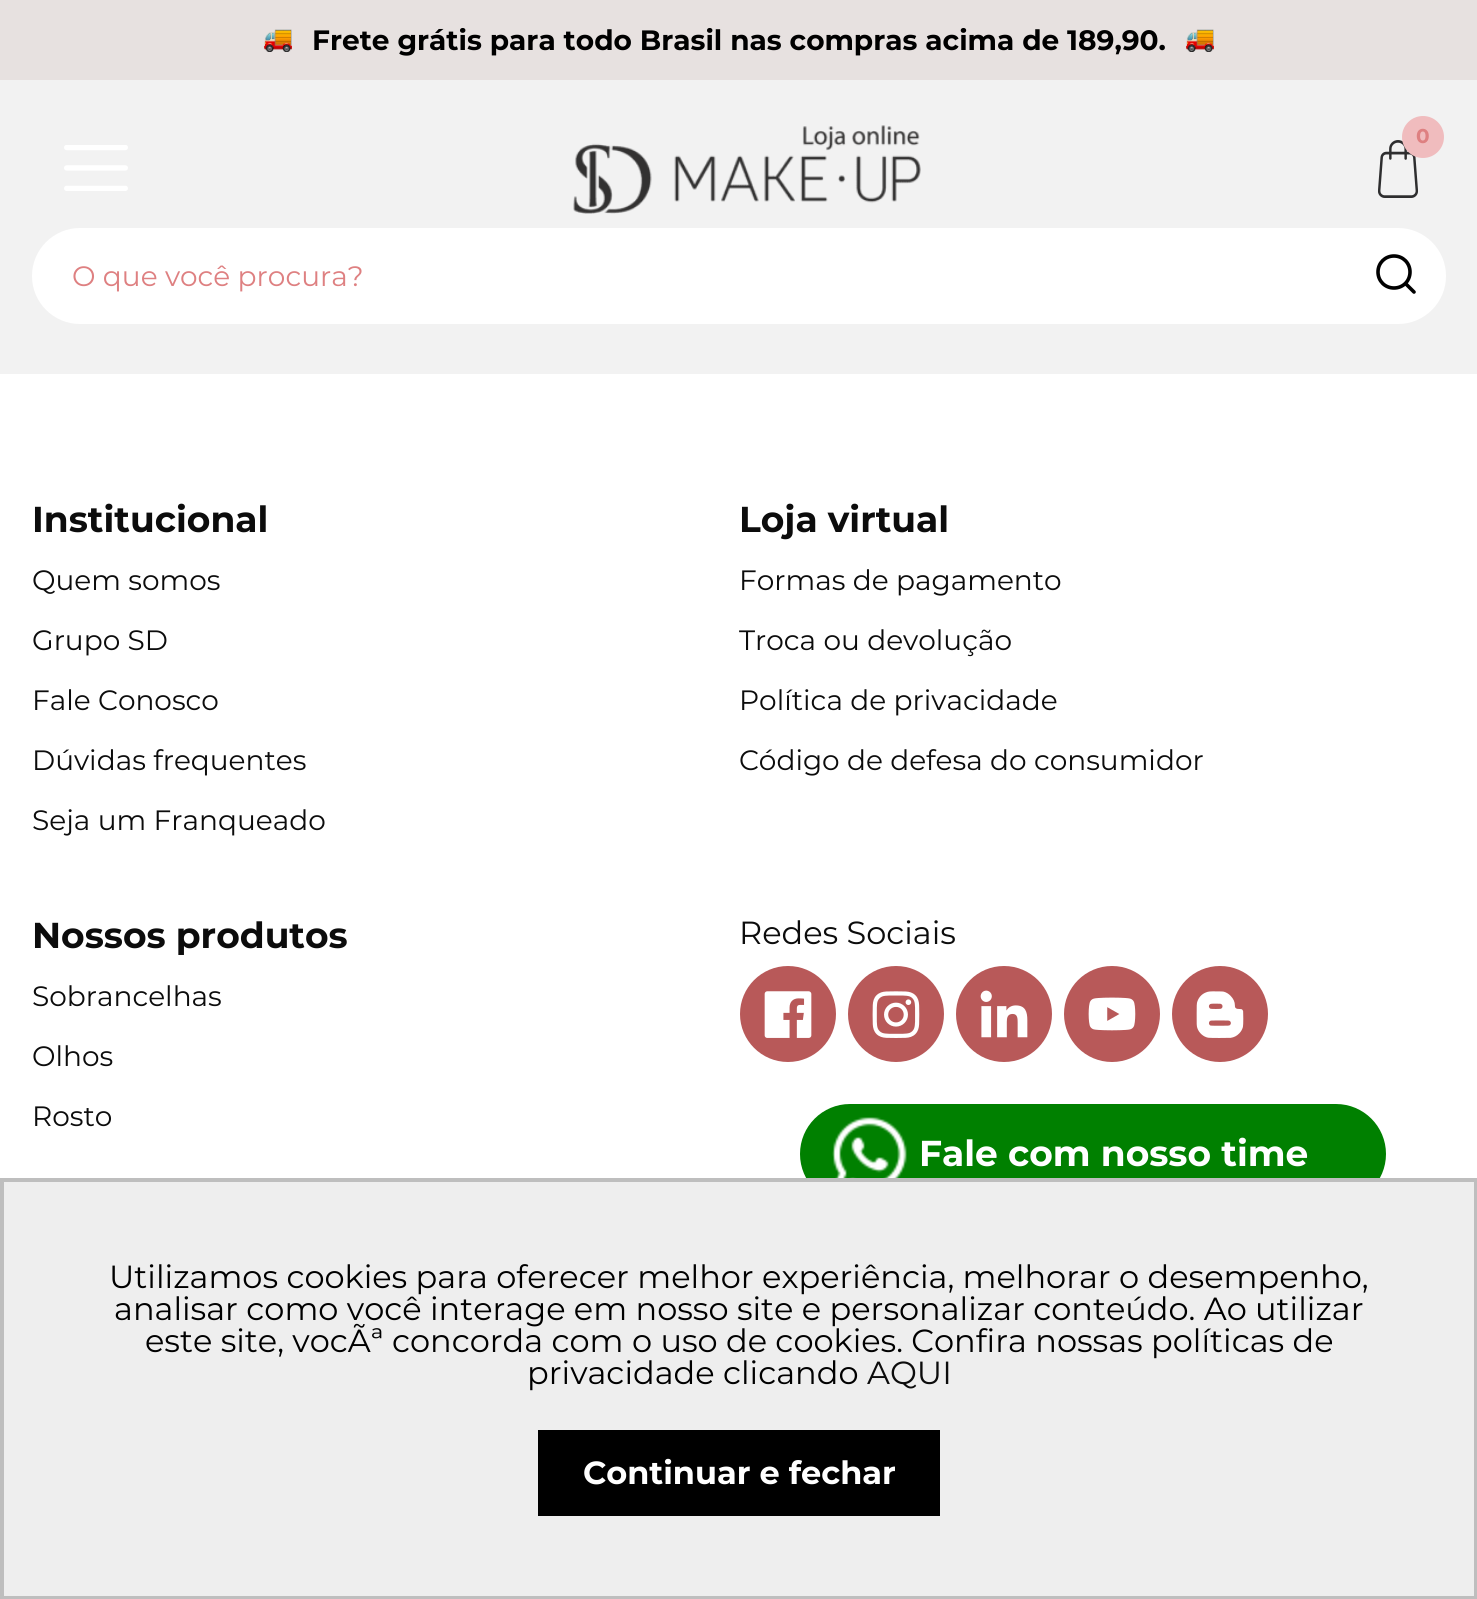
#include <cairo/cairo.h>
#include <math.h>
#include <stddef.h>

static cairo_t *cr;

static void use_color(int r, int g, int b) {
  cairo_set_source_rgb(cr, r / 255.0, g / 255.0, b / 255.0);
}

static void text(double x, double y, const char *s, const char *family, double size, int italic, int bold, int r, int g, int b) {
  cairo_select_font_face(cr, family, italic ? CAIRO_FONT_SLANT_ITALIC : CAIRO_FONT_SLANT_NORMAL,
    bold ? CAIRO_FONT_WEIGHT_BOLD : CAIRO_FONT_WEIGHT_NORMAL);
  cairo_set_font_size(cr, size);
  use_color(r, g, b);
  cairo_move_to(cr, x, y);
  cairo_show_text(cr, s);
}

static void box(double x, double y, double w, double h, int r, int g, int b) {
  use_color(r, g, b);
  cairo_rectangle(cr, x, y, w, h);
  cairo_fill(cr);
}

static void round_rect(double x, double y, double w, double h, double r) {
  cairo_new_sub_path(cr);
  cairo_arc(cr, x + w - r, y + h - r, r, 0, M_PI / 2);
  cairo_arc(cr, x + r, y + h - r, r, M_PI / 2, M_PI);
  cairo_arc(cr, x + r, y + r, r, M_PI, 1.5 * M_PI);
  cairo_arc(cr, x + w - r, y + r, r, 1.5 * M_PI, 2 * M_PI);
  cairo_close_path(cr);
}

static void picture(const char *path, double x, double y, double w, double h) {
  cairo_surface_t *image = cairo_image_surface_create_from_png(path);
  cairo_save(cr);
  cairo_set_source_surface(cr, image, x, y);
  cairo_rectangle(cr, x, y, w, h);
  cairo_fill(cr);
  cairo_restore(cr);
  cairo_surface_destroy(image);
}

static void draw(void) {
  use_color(255, 255, 255);
  cairo_paint(cr);
  box(0, 80, 1477, 294, 242, 242, 242);
  box(0, 0, 1477, 80, 231, 225, 224);
  picture("img_01.png", 264, 29, 28, 23);
  picture("img_01.png", 1186, 29, 28, 23);
  picture("img_02.png", 573, 125, 348, 89);
  picture("img_03.png", 1378, 140, 40, 58);
  use_color(240, 188, 190);
  cairo_arc(cr, 1423, 137, 21, 0, 2 * M_PI);
  cairo_fill(cr);
  picture("img_04.png", 64, 145, 64, 46);
  use_color(255, 255, 255);
  round_rect(32, 228, 1414, 96, 48);
  cairo_fill(cr);
  cairo_new_path(cr);
  cairo_move_to(cr, 1394, 288);
  cairo_curve_to(cr, 1403, 288, 1410, 281, 1410, 272);
  cairo_curve_to(cr, 1410, 263, 1403, 256, 1394, 256);
  cairo_curve_to(cr, 1385, 256, 1378, 263, 1378, 272);
  cairo_curve_to(cr, 1378, 281, 1385, 288, 1394, 288);
  cairo_close_path(cr);
  cairo_move_to(cr, 1414, 292);
  cairo_line_to(cr, 1405.5, 283.5);
  use_color(0, 0, 0);
  cairo_set_line_width(cr, 3.6);
  cairo_set_line_cap(cr, CAIRO_LINE_CAP_ROUND);
  cairo_set_line_join(cr, CAIRO_LINE_JOIN_ROUND);
  cairo_stroke(cr);
  use_color(184, 89, 89);
  cairo_arc(cr, 788, 1014, 48, 0, 2 * M_PI);
  cairo_fill(cr);
  picture("img_05.png", 764, 991, 48, 47);
  cairo_arc(cr, 896, 1014, 48, 0, 2 * M_PI);
  cairo_fill(cr);
  picture("img_06.png", 872, 991, 48, 47);
  cairo_arc(cr, 1004, 1014, 48, 0, 2 * M_PI);
  cairo_fill(cr);
  picture("img_07.png", 980, 990, 48, 48);
  cairo_arc(cr, 1112, 1014, 48, 0, 2 * M_PI);
  cairo_fill(cr);
  picture("img_08.png", 1088, 997, 48, 34);
  cairo_arc(cr, 1220, 1014, 48, 0, 2 * M_PI);
  cairo_fill(cr);
  picture("img_09.png", 1196, 991, 48, 47);
  use_color(0, 128, 0);
  round_rect(800, 1104, 586, 100, 50);
  cairo_fill(cr);
  picture("img_10.png", 832, 1117, 75, 61);
  use_color(238, 238, 238);
  cairo_rectangle(cr, 2, 1180, 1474, 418);
  cairo_fill_preserve(cr);
  use_color(190, 190, 190);
  cairo_set_line_width(cr, 4);
  cairo_set_line_cap(cr, CAIRO_LINE_CAP_BUTT);
  cairo_set_line_join(cr, CAIRO_LINE_JOIN_MITER);
  cairo_stroke(cr);
  box(538, 1430, 402, 86, 0, 0, 0);
  text(312, 50, "Frete grátis para todo Brasil nas compras acima de 189,90.", "Montserrat", 28, 0, 1, 0, 0, 0);
  text(1416, 143, "0", "Montserrat", 20, 0, 1, 222, 128, 129);
  text(72, 286, "O que você procura?", "Montserrat", 28, 0, 0, 222, 128, 129);
  text(32, 532, "Institucional", "Montserrat", 36, 0, 1, 12, 12, 12);
  text(32, 590, "Quem somos", "Montserrat", 28, 0, 0, 12, 12, 12);
  text(32, 650, "Grupo SD", "Montserrat", 28, 0, 0, 12, 12, 12);
  text(32, 710, "Fale Conosco", "Montserrat", 28, 0, 0, 12, 12, 12);
  text(32, 770, "Dúvidas frequentes", "Montserrat", 28, 0, 0, 12, 12, 12);
  text(32, 830, "Seja um Franqueado", "Montserrat", 28, 0, 0, 12, 12, 12);
  text(739, 532, "Loja virtual", "Montserrat", 36, 0, 1, 12, 12, 12);
  text(739, 590, "Formas de pagamento", "Montserrat", 28, 0, 0, 12, 12, 12);
  text(739, 650, "Troca ou devolução", "Montserrat", 28, 0, 0, 12, 12, 12);
  text(739, 710, "Política de privacidade", "Montserrat", 28, 0, 0, 12, 12, 12);
  text(739, 770, "Código de defesa do consumidor", "Montserrat", 28, 0, 0, 12, 12, 12);
  text(32, 948, "Nossos produtos", "Montserrat", 36, 0, 1, 12, 12, 12);
  text(32, 1006, "Sobrancelhas", "Montserrat", 28, 0, 0, 12, 12, 12);
  text(32, 1066, "Olhos", "Montserrat", 28, 0, 0, 12, 12, 12);
  text(32, 1126, "Rosto", "Montserrat", 28, 0, 0, 12, 12, 12);
  text(739, 944, "Redes Sociais", "Montserrat", 32, 0, 0, 12, 12, 12);
  text(919, 1166, "Fale com nosso time", "Montserrat", 36, 0, 1, 255, 255, 255);
  text(109, 1288, "Utilizamos cookies para oferecer melhor experiência, melhorar o desempenho,", "Montserrat", 32, 0, 0, 0, 0, 0);
  text(114, 1320, "analisar como você interage em nosso site e personalizar conteúdo. Ao utilizar", "Montserrat", 32, 0, 0, 0, 0, 0);
  text(145, 1352, "este site, vocÃª concorda com o uso de cookies. Confira nossas políticas de", "Montserrat", 32, 0, 0, 0, 0, 0);
  text(527, 1384, "privacidade clicando", "Montserrat", 32, 0, 0, 0, 0, 0);
  text(867, 1384, "AQUI", "Montserrat", 32, 0, 0, 12, 12, 12);
  text(583, 1484, "Continuar e fechar", "Montserrat", 32, 0, 1, 255, 255, 255);
}

int main(void) {
  cairo_surface_t *surface = cairo_image_surface_create(CAIRO_FORMAT_RGB24, 1477, 1599);
  cr = cairo_create(surface);
  cairo_font_options_t *options = cairo_font_options_create();
  cairo_font_options_set_hint_metrics(options, CAIRO_HINT_METRICS_OFF);
  cairo_font_options_set_hint_style(options, CAIRO_HINT_STYLE_NONE);
  cairo_set_font_options(cr, options);
  cairo_set_miter_limit(cr, 4);
  draw();
  cairo_surface_write_to_png(surface, "out.png");
  cairo_font_options_destroy(options);
  cairo_destroy(cr);
  cairo_surface_destroy(surface);
  return 0;
}
